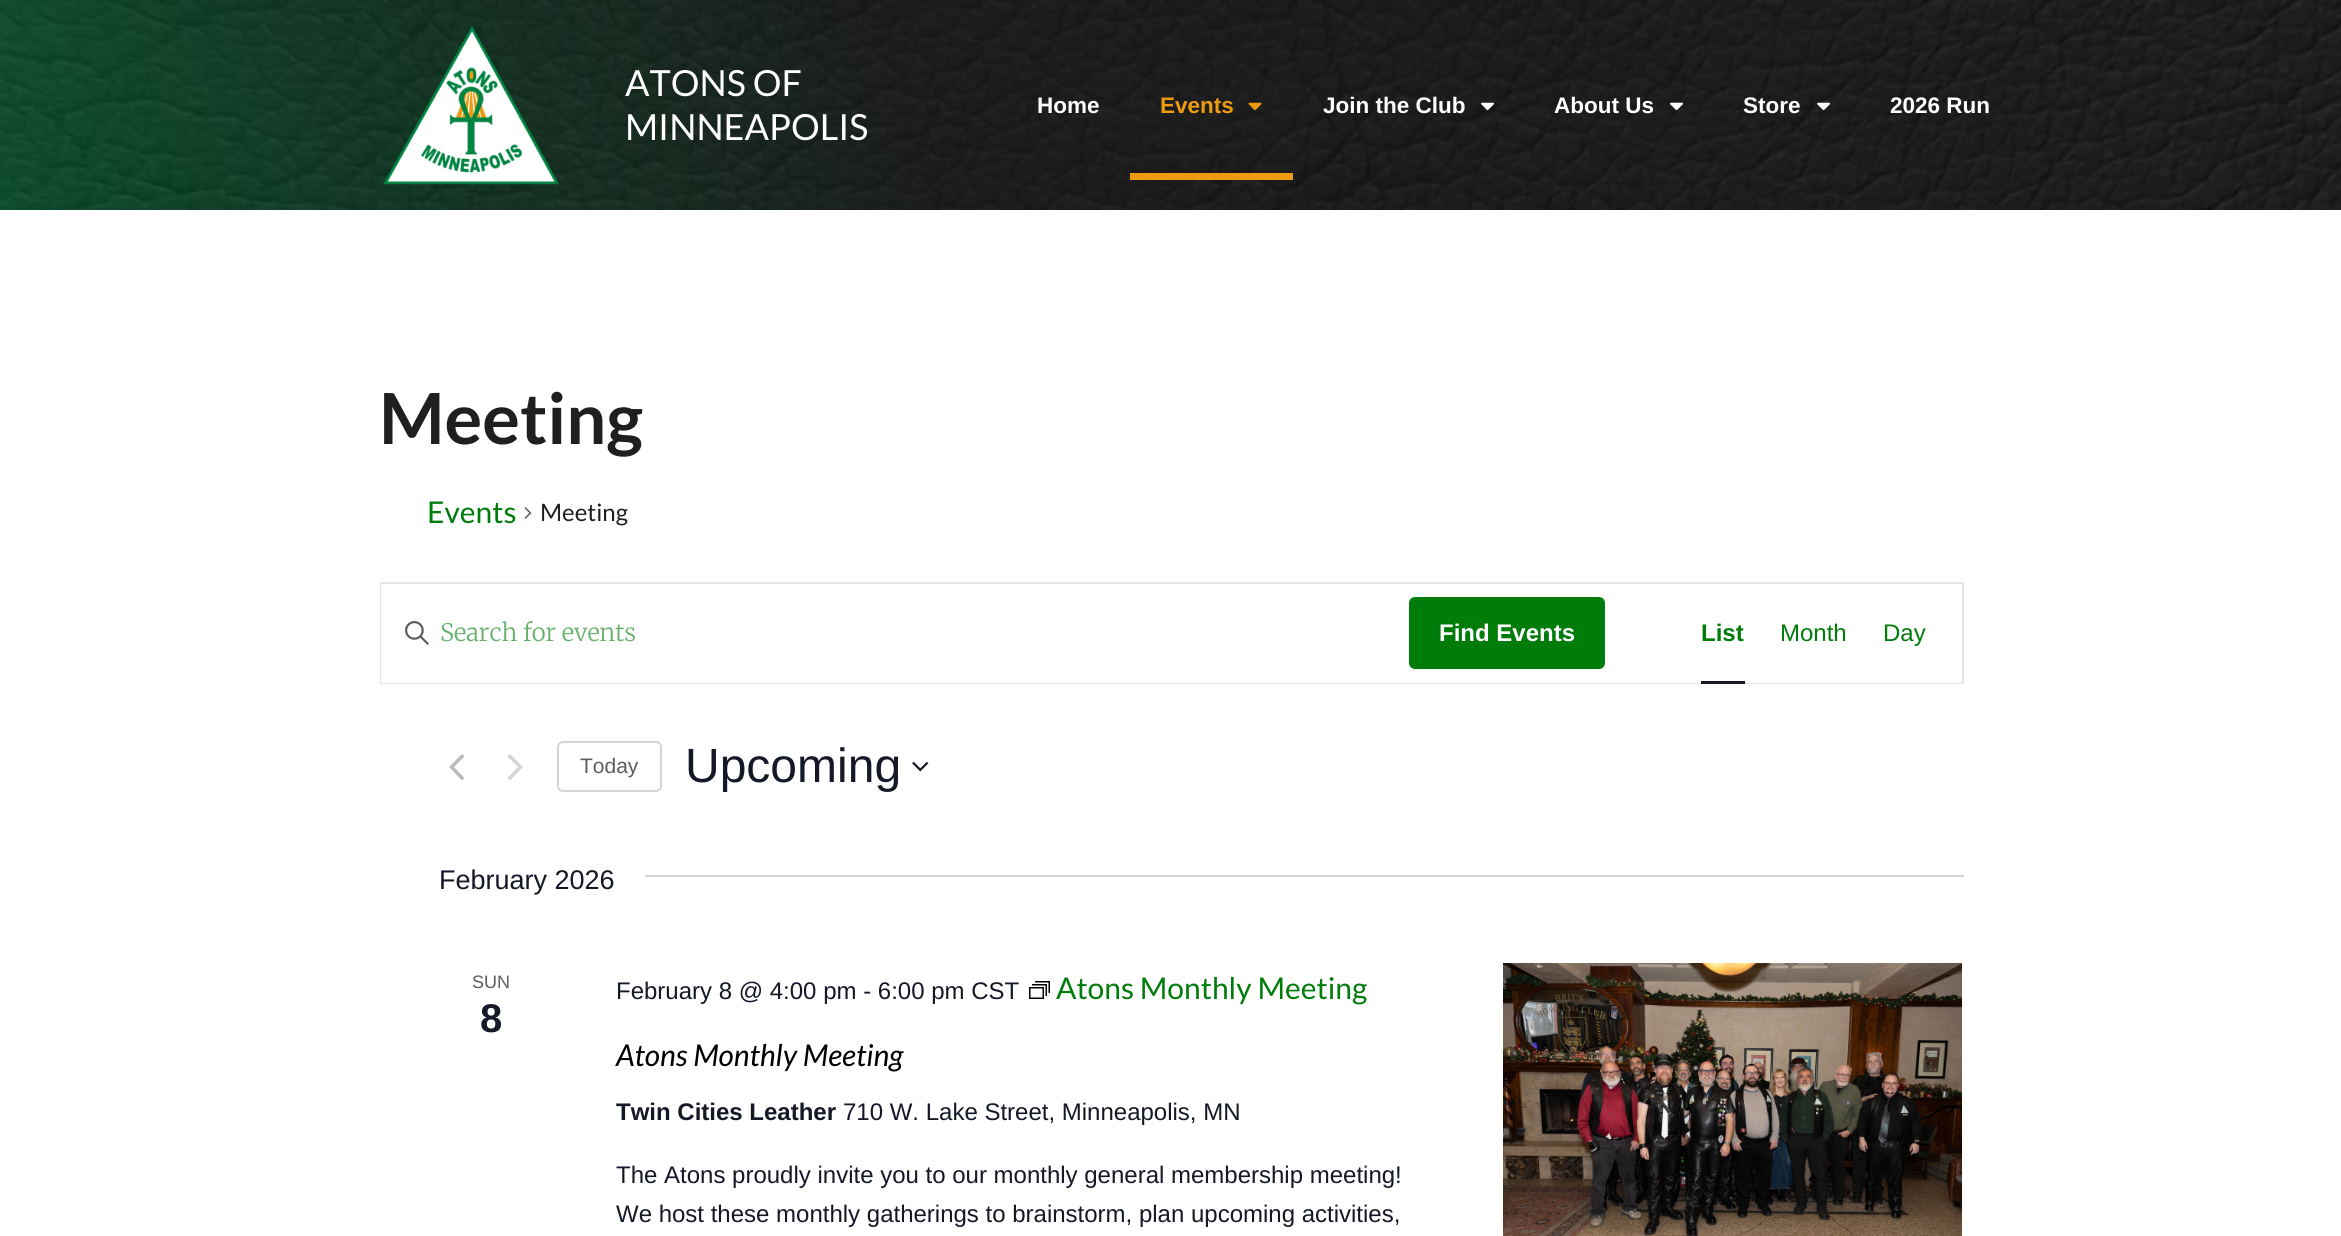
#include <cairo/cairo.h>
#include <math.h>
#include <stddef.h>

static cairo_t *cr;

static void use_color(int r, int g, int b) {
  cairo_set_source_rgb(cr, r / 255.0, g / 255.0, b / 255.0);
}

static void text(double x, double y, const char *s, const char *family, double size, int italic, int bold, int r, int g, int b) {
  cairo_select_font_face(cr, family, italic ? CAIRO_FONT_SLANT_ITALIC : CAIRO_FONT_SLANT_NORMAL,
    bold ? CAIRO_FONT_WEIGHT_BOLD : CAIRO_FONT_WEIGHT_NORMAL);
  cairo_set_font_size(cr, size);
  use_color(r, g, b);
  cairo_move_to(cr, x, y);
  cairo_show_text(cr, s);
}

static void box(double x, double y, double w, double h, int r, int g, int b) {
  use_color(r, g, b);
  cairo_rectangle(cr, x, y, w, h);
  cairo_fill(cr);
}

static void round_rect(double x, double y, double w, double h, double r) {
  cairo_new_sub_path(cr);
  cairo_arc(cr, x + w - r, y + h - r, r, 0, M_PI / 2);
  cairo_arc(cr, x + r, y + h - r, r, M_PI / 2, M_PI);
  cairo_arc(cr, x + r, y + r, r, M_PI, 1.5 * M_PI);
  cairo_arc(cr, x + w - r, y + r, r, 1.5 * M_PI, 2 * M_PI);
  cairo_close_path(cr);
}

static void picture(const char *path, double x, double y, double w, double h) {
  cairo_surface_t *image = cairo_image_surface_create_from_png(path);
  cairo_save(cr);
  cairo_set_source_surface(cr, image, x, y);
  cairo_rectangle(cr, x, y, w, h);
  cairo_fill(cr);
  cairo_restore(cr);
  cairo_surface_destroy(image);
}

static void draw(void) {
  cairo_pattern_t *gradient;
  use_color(255, 255, 255);
  cairo_paint(cr);
  gradient = cairo_pattern_create_linear(103, 494, 2238, -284);
  cairo_pattern_add_color_stop_rgba(gradient, 0, 0.008, 0.373, 0.192, 1);
  cairo_pattern_add_color_stop_rgba(gradient, 0.4, 0.094, 0.094, 0.094, 1);
  cairo_set_source(cr, gradient);
  cairo_pattern_destroy(gradient);
  cairo_rectangle(cr, 0, 0, 2341, 210);
  cairo_fill(cr);
  picture("img_01.png", 0, 0, 2341, 210);
  picture("img_02.png", 383, 26, 176, 159);
  picture("img_03.png", 1248, 102, 14, 9);
  box(1130, 173, 163, 7, 238, 155, 18);
  picture("img_04.png", 1481, 102, 13, 9);
  picture("img_05.png", 1670, 102, 13, 9);
  picture("img_06.png", 1817, 102, 13, 9);
  picture("img_07.png", 524, 507, 8, 12);
  cairo_rectangle(cr, 381, 583, 1582, 100);
  use_color(228, 228, 228);
  cairo_stroke(cr);
  box(381, 584, 1224, 99, 255, 255, 255);
  picture("img_08.png", 405, 621, 24, 24);
  use_color(0, 124, 10);
  round_rect(1409, 597, 196, 72, 6);
  cairo_fill(cr);
  box(1605, 682, 357, 1, 255, 255, 255);
  box(1701, 681, 44, 3, 20, 24, 39);
  use_color(186, 186, 186);
  cairo_new_path(cr);
  cairo_move_to(cr, 464.5, 778);
  cairo_line_to(cr, 462, 780.5);
  cairo_line_to(cr, 449, 767);
  cairo_line_to(cr, 462, 754);
  cairo_line_to(cr, 464.5, 756.5);
  cairo_line_to(cr, 454, 767);
  cairo_close_path(cr);
  cairo_fill(cr);
  use_color(213, 213, 213);
  cairo_new_path(cr);
  cairo_move_to(cr, 507.5, 756.5);
  cairo_line_to(cr, 510, 754);
  cairo_line_to(cr, 523, 767);
  cairo_line_to(cr, 510, 780.5);
  cairo_line_to(cr, 507.5, 778);
  cairo_line_to(cr, 518, 767);
  cairo_close_path(cr);
  cairo_fill(cr);
  round_rect(558, 742, 103, 49, 5);
  cairo_stroke(cr);
  picture("img_09.png", 912, 761, 17, 11);
  box(645, 875, 1319, 2, 213, 213, 213);
  picture("img_10.png", 1029, 981, 21, 18);
  picture("img_11.png", 1503, 963, 459, 273);
  text(625, 96, "ATONS OF", "Lato", 36, 0, 0, 255, 255, 255);
  text(625, 140, "MINNEAPOLIS", "Lato", 36, 0, 0, 255, 255, 255);
  text(1037, 113, "Home", "Liberation Sans", 22.5, 0, 1, 255, 255, 255);
  text(1160, 113, "Events", "Liberation Sans", 22.5, 0, 1, 238, 155, 18);
  text(1323, 113, "Join the Club", "Liberation Sans", 22.5, 0, 1, 255, 255, 255);
  text(1554, 113, "About Us", "Liberation Sans", 22.5, 0, 1, 255, 255, 255);
  text(1743, 113, "Store", "Liberation Sans", 22.5, 0, 1, 255, 255, 255);
  text(1890, 113, "2026 Run", "Liberation Sans", 22.5, 0, 1, 255, 255, 255);
  text(379, 444, "Meeting", "Lato", 70.5, 0, 1, 31, 31, 31);
  text(427, 523, "Events", "Lato", 30, 0, 0, 0, 124, 10);
  text(540, 521, "Meeting", "Lato", 24, 0, 0, 31, 31, 31);
  text(440, 641, "Search for events", "Merriweather Light", 24, 0, 0, 102, 176, 108);
  text(1439, 641, "Find Events", "Liberation Sans", 24, 0, 1, 255, 255, 255);
  text(1701, 641, "List", "Liberation Sans", 24, 0, 1, 0, 124, 10);
  text(1780, 641, "Month", "Liberation Sans", 24, 0, 0, 0, 124, 10);
  text(1883, 641, "Day", "Liberation Sans", 24, 0, 0, 0, 124, 10);
  text(580, 773, "Today", "Liberation Sans", 21, 0, 0, 93, 93, 93);
  text(685, 782, "Upcoming", "Liberation Sans", 48, 0, 0, 20, 24, 39);
  text(439, 889, "February 2026", "Liberation Sans", 27, 0, 0, 20, 24, 39);
  text(472, 988, "SUN", "Liberation Sans", 18, 0, 0, 93, 93, 93);
  text(480, 1032, "8", "Liberation Sans", 40, 0, 1, 20, 24, 39);
  text(616, 999, "February 8 @ 4:00 pm - 6:00 pm CST", "Liberation Sans", 24, 0, 0, 20, 24, 39);
  text(1056, 999, "Atons Monthly Meeting", "Lato", 30, 0, 0, 0, 124, 10);
  text(616, 1066, "Atons Monthly Meeting", "Lato", 30, 1, 0, 0, 0, 0);
  text(616, 1120, "Twin Cities Leather", "Liberation Sans", 24, 0, 1, 20, 24, 39);
  text(843, 1120, "710 W. Lake Street, Minneapolis, MN", "Liberation Sans", 24, 0, 0, 20, 24, 39);
  text(616, 1183, "The Atons proudly invite you to our monthly general membership meeting!", "Liberation Sans", 24, 0, 0, 20, 24, 39);
  text(616, 1222, "We host these monthly gatherings to brainstorm, plan upcoming activities,", "Liberation Sans", 24, 0, 0, 20, 24, 39);
}

int main(void) {
  cairo_surface_t *surface = cairo_image_surface_create(CAIRO_FORMAT_RGB24, 2341, 1236);
  cr = cairo_create(surface);
  cairo_font_options_t *options = cairo_font_options_create();
  cairo_font_options_set_hint_metrics(options, CAIRO_HINT_METRICS_OFF);
  cairo_font_options_set_hint_style(options, CAIRO_HINT_STYLE_NONE);
  cairo_set_font_options(cr, options);
  cairo_set_miter_limit(cr, 4);
  draw();
  cairo_surface_write_to_png(surface, "out.png");
  cairo_font_options_destroy(options);
  cairo_destroy(cr);
  cairo_surface_destroy(surface);
  return 0;
}
